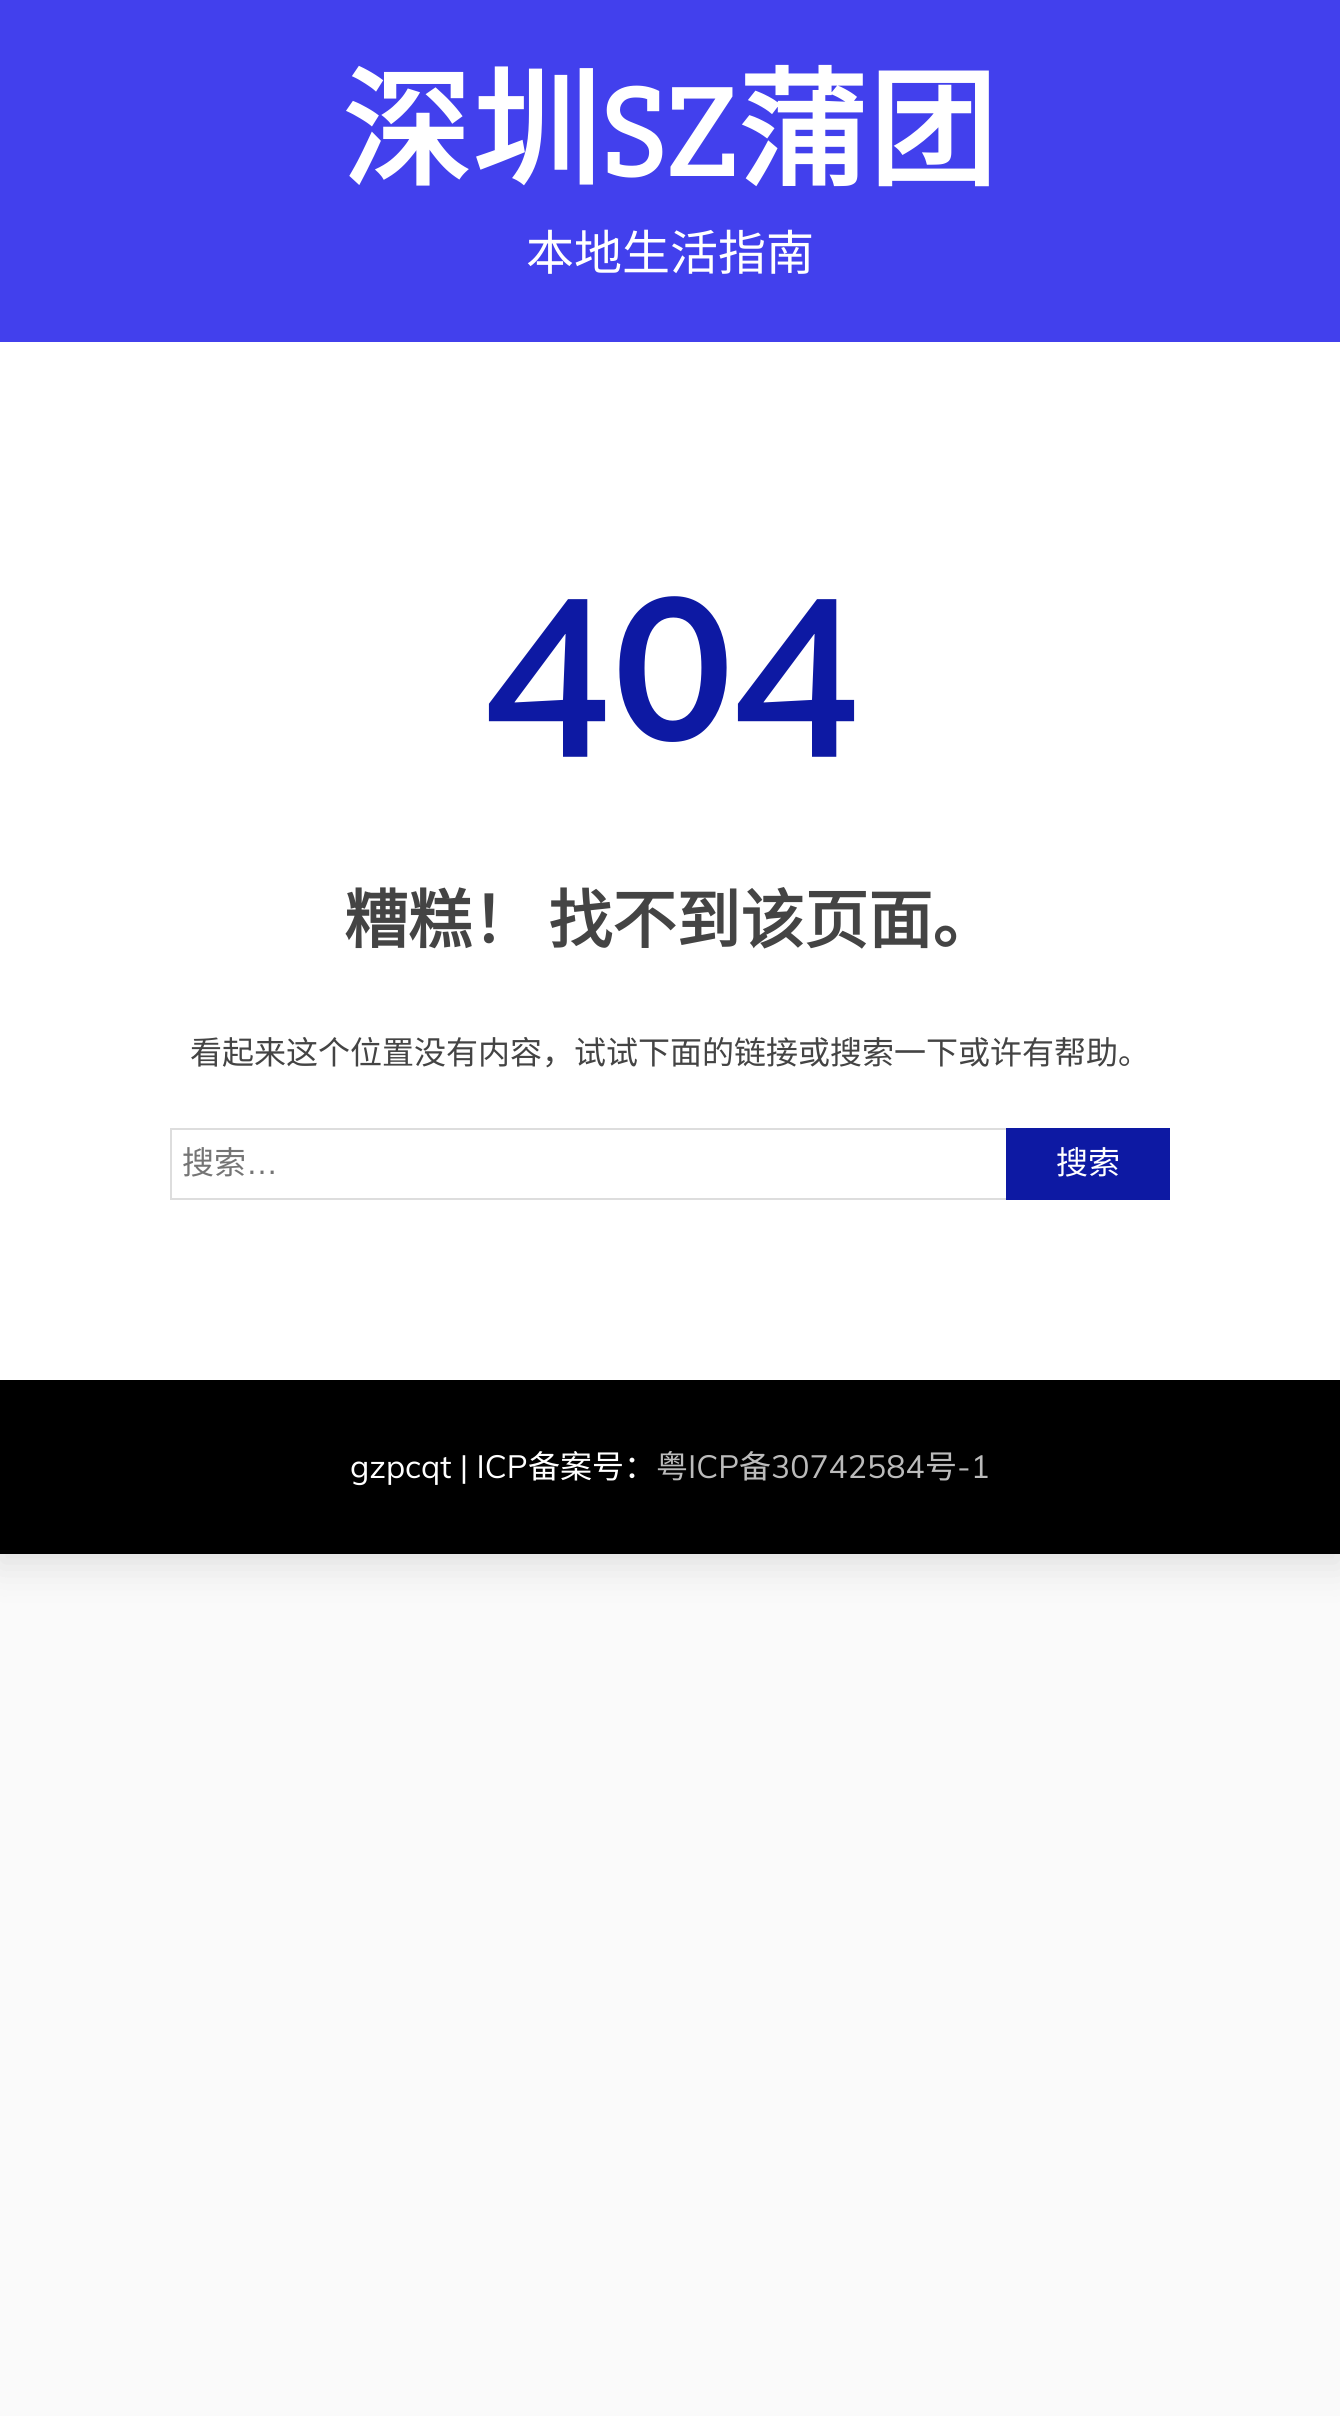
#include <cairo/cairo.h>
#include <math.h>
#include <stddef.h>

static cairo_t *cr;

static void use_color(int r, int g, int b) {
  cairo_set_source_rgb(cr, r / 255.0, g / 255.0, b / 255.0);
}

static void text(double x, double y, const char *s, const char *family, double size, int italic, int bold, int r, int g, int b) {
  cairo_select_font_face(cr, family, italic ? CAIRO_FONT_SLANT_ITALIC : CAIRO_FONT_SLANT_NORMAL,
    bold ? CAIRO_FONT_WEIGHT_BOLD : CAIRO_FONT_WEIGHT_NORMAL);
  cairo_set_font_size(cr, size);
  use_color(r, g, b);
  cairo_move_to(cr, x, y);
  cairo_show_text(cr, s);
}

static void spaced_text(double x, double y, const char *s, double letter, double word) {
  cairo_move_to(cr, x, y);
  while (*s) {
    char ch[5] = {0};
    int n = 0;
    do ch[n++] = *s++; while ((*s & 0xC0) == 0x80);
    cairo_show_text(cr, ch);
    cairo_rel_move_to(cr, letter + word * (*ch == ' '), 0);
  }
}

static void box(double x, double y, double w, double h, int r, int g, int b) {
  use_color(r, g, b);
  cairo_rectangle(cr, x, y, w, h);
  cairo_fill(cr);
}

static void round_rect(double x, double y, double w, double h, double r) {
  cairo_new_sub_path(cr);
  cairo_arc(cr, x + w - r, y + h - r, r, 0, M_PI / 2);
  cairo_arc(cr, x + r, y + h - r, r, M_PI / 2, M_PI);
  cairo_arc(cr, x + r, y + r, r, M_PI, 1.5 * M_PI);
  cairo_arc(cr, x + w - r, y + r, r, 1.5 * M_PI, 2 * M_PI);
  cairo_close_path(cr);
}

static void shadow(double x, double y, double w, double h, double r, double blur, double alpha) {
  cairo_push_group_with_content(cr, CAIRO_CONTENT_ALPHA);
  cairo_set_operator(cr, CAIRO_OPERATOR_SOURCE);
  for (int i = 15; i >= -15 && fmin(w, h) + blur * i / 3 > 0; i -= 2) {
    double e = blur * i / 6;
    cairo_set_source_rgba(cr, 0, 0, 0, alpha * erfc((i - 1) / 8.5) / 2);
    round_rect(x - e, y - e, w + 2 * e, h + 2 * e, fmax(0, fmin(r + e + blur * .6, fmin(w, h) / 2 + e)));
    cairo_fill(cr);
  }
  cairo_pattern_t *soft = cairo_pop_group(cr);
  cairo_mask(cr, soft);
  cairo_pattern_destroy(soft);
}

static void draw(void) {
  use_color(250, 250, 250);
  cairo_paint(cr);
  use_color(0, 0, 0);
  shadow(-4, 6, 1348, 1562, 0, 19, 0.1);
  box(0, 342, 1340, 1038, 255, 255, 255);
  box(0, 0, 1340, 342, 66, 64, 237);
  cairo_rectangle(cr, 171, 1129, 998, 70);
  use_color(221, 221, 221);
  cairo_stroke(cr);
  box(1006, 1128, 164, 72, 13, 25, 163);
  box(0, 1380, 1340, 174, 0, 0, 0);
  cairo_select_font_face(cr, "Noto Sans CJK SC", CAIRO_FONT_SLANT_NORMAL, CAIRO_FONT_WEIGHT_BOLD);
  cairo_set_font_size(cr, 128);
  use_color(255, 255, 255);
  spaced_text(342, 176, "深圳", 2, 0);
  cairo_select_font_face(cr, "Slabo 27px", CAIRO_FONT_SLANT_NORMAL, CAIRO_FONT_WEIGHT_BOLD);
  spaced_text(602, 176, "SZ", 2, 0);
  cairo_select_font_face(cr, "Noto Sans CJK SC", CAIRO_FONT_SLANT_NORMAL, CAIRO_FONT_WEIGHT_BOLD);
  spaced_text(738, 176, "蒲团", 2, 0);
  text(526, 270, "本地生活指南", "Noto Sans CJK SC", 48, 0, 0, 255, 255, 255);
  text(483, 739, "404", "Slabo 27px", 240, 0, 1, 13, 25, 163);
  cairo_select_font_face(cr, "Noto Sans CJK SC", CAIRO_FONT_SLANT_NORMAL, CAIRO_FONT_WEIGHT_BOLD);
  cairo_set_font_size(cr, 64);
  use_color(68, 68, 68);
  spaced_text(344, 943, "糟糕！ 找不到该页面。", 0, -2);
  text(190, 1064, "看起来这个位置没有内容，试试下面的链接或搜索一下或许有帮助。", "Noto Sans CJK SC", 32, 0, 0, 68, 68, 68);
  text(182, 1174, "搜索", "Noto Sans CJK SC", 32, 0, 0, 117, 117, 117);
  text(246, 1174, "…", "Liberation Sans", 32, 0, 0, 117, 117, 117);
  text(1056, 1174, "搜索", "Noto Sans CJK SC", 32, 0, 0, 255, 255, 255);
  text(350, 1478, "gzpcqt | ICP", "Muli", 32, 0, 0, 255, 255, 255);
  text(528, 1478, "备案号：", "Noto Sans CJK SC", 32, 0, 0, 255, 255, 255);
  text(656, 1478, "粤", "Noto Sans CJK SC", 32, 0, 0, 187, 187, 187);
  text(688, 1478, "ICP", "Muli", 32, 0, 0, 187, 187, 187);
  text(739, 1478, "备", "Noto Sans CJK SC", 32, 0, 0, 187, 187, 187);
  text(771, 1478, "30742584", "Muli", 32, 0, 0, 187, 187, 187);
  text(925, 1478, "号", "Noto Sans CJK SC", 32, 0, 0, 187, 187, 187);
  text(957, 1478, "-1", "Muli", 32, 0, 0, 187, 187, 187);
}

int main(void) {
  cairo_surface_t *surface = cairo_image_surface_create(CAIRO_FORMAT_RGB24, 1340, 2416);
  cr = cairo_create(surface);
  cairo_font_options_t *options = cairo_font_options_create();
  cairo_font_options_set_hint_metrics(options, CAIRO_HINT_METRICS_OFF);
  cairo_font_options_set_hint_style(options, CAIRO_HINT_STYLE_NONE);
  cairo_set_font_options(cr, options);
  cairo_set_miter_limit(cr, 4);
  draw();
  cairo_surface_write_to_png(surface, "out.png");
  cairo_font_options_destroy(options);
  cairo_destroy(cr);
  cairo_surface_destroy(surface);
  return 0;
}
